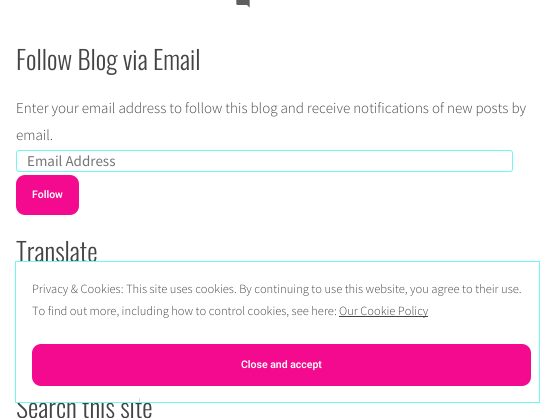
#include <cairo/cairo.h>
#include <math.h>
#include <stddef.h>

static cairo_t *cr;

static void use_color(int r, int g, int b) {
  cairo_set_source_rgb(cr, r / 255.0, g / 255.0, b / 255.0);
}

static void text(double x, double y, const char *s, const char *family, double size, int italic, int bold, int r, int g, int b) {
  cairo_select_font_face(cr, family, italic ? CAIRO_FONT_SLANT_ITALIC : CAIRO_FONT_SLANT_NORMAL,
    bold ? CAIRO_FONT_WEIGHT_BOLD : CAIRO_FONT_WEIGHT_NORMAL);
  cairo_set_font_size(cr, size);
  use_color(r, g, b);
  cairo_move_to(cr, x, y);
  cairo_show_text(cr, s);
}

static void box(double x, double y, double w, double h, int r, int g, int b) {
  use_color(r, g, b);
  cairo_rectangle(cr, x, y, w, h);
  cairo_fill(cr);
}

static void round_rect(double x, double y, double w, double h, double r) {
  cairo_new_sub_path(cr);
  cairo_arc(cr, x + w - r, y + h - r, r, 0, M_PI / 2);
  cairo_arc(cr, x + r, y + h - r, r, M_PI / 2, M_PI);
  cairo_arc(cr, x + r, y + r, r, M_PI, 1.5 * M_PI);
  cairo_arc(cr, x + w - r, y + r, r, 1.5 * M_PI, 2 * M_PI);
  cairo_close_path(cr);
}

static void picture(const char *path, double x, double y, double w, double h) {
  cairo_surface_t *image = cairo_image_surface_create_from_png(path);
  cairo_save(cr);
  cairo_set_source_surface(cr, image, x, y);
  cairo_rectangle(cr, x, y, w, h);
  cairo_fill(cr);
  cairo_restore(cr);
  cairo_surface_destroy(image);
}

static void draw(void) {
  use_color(255, 255, 255);
  cairo_paint(cr);
  picture("img_01.png", 236, 0, 14, 8);
  round_rect(16.5, 150.5, 496, 21, 2.5);
  use_color(113, 246, 241);
  cairo_set_line_width(cr, 1);
  cairo_stroke(cr);
  use_color(244, 10, 143);
  round_rect(16, 175, 63, 40, 9);
  cairo_fill(cr);
  text(16, 70, "Follow Blog via Email", "Oswald Light", 26, 0, 0, 68, 68, 68);
  text(16, 113, "Enter your email address to follow this blog and receive notifications of new posts by", "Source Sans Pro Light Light", 15, 0, 0, 68, 68, 68);
  text(16, 140, "email.", "Source Sans Pro Light Light", 15, 0, 0, 68, 68, 68);
  text(27, 166, "Email Address", "Source Sans Pro", 15, 0, 0, 117, 117, 117);
  text(32, 198, "Follow", "Roboto SemiBold", 10.5, 0, 0, 255, 255, 255);
  text(16, 262, "Translate", "Oswald Light", 26, 0, 0, 68, 68, 68);
  text(16, 418, "Search this site", "Oswald Light", 26, 0, 0, 68, 68, 68);
  box(17, 262, 122, 140, 255, 255, 255);
  cairo_rectangle(cr, 15.5, 261.5, 524, 141);
  use_color(113, 246, 241);
  cairo_stroke(cr);
  text(32, 293, "Privacy & Cookies: This site uses cookies. By continuing to use this website, you agree to their use.", "Source Sans Pro Light Light", 12.5, 0, 0, 68, 68, 68);
  text(32, 315, "To find out more, including how to control cookies, see here:", "Source Sans Pro Light Light", 12.5, 0, 0, 68, 68, 68);
  box(339, 316, 89, 1, 68, 68, 68);
  text(339, 315, "Our Cookie Policy", "Source Sans Pro Light Light", 12.5, 0, 0, 68, 68, 68);
  use_color(244, 10, 143);
  round_rect(32, 344, 499, 42, 9);
  cairo_fill(cr);
  text(241, 368, "Close and accept", "Roboto SemiBold", 10.5, 0, 0, 255, 255, 255);
}

int main(void) {
  cairo_surface_t *surface = cairo_image_surface_create(CAIRO_FORMAT_RGB24, 555, 418);
  cr = cairo_create(surface);
  cairo_font_options_t *options = cairo_font_options_create();
  cairo_font_options_set_hint_metrics(options, CAIRO_HINT_METRICS_OFF);
  cairo_font_options_set_hint_style(options, CAIRO_HINT_STYLE_NONE);
  cairo_set_font_options(cr, options);
  cairo_set_miter_limit(cr, 4);
  draw();
  cairo_surface_write_to_png(surface, "out.png");
  cairo_font_options_destroy(options);
  cairo_destroy(cr);
  cairo_surface_destroy(surface);
  return 0;
}
